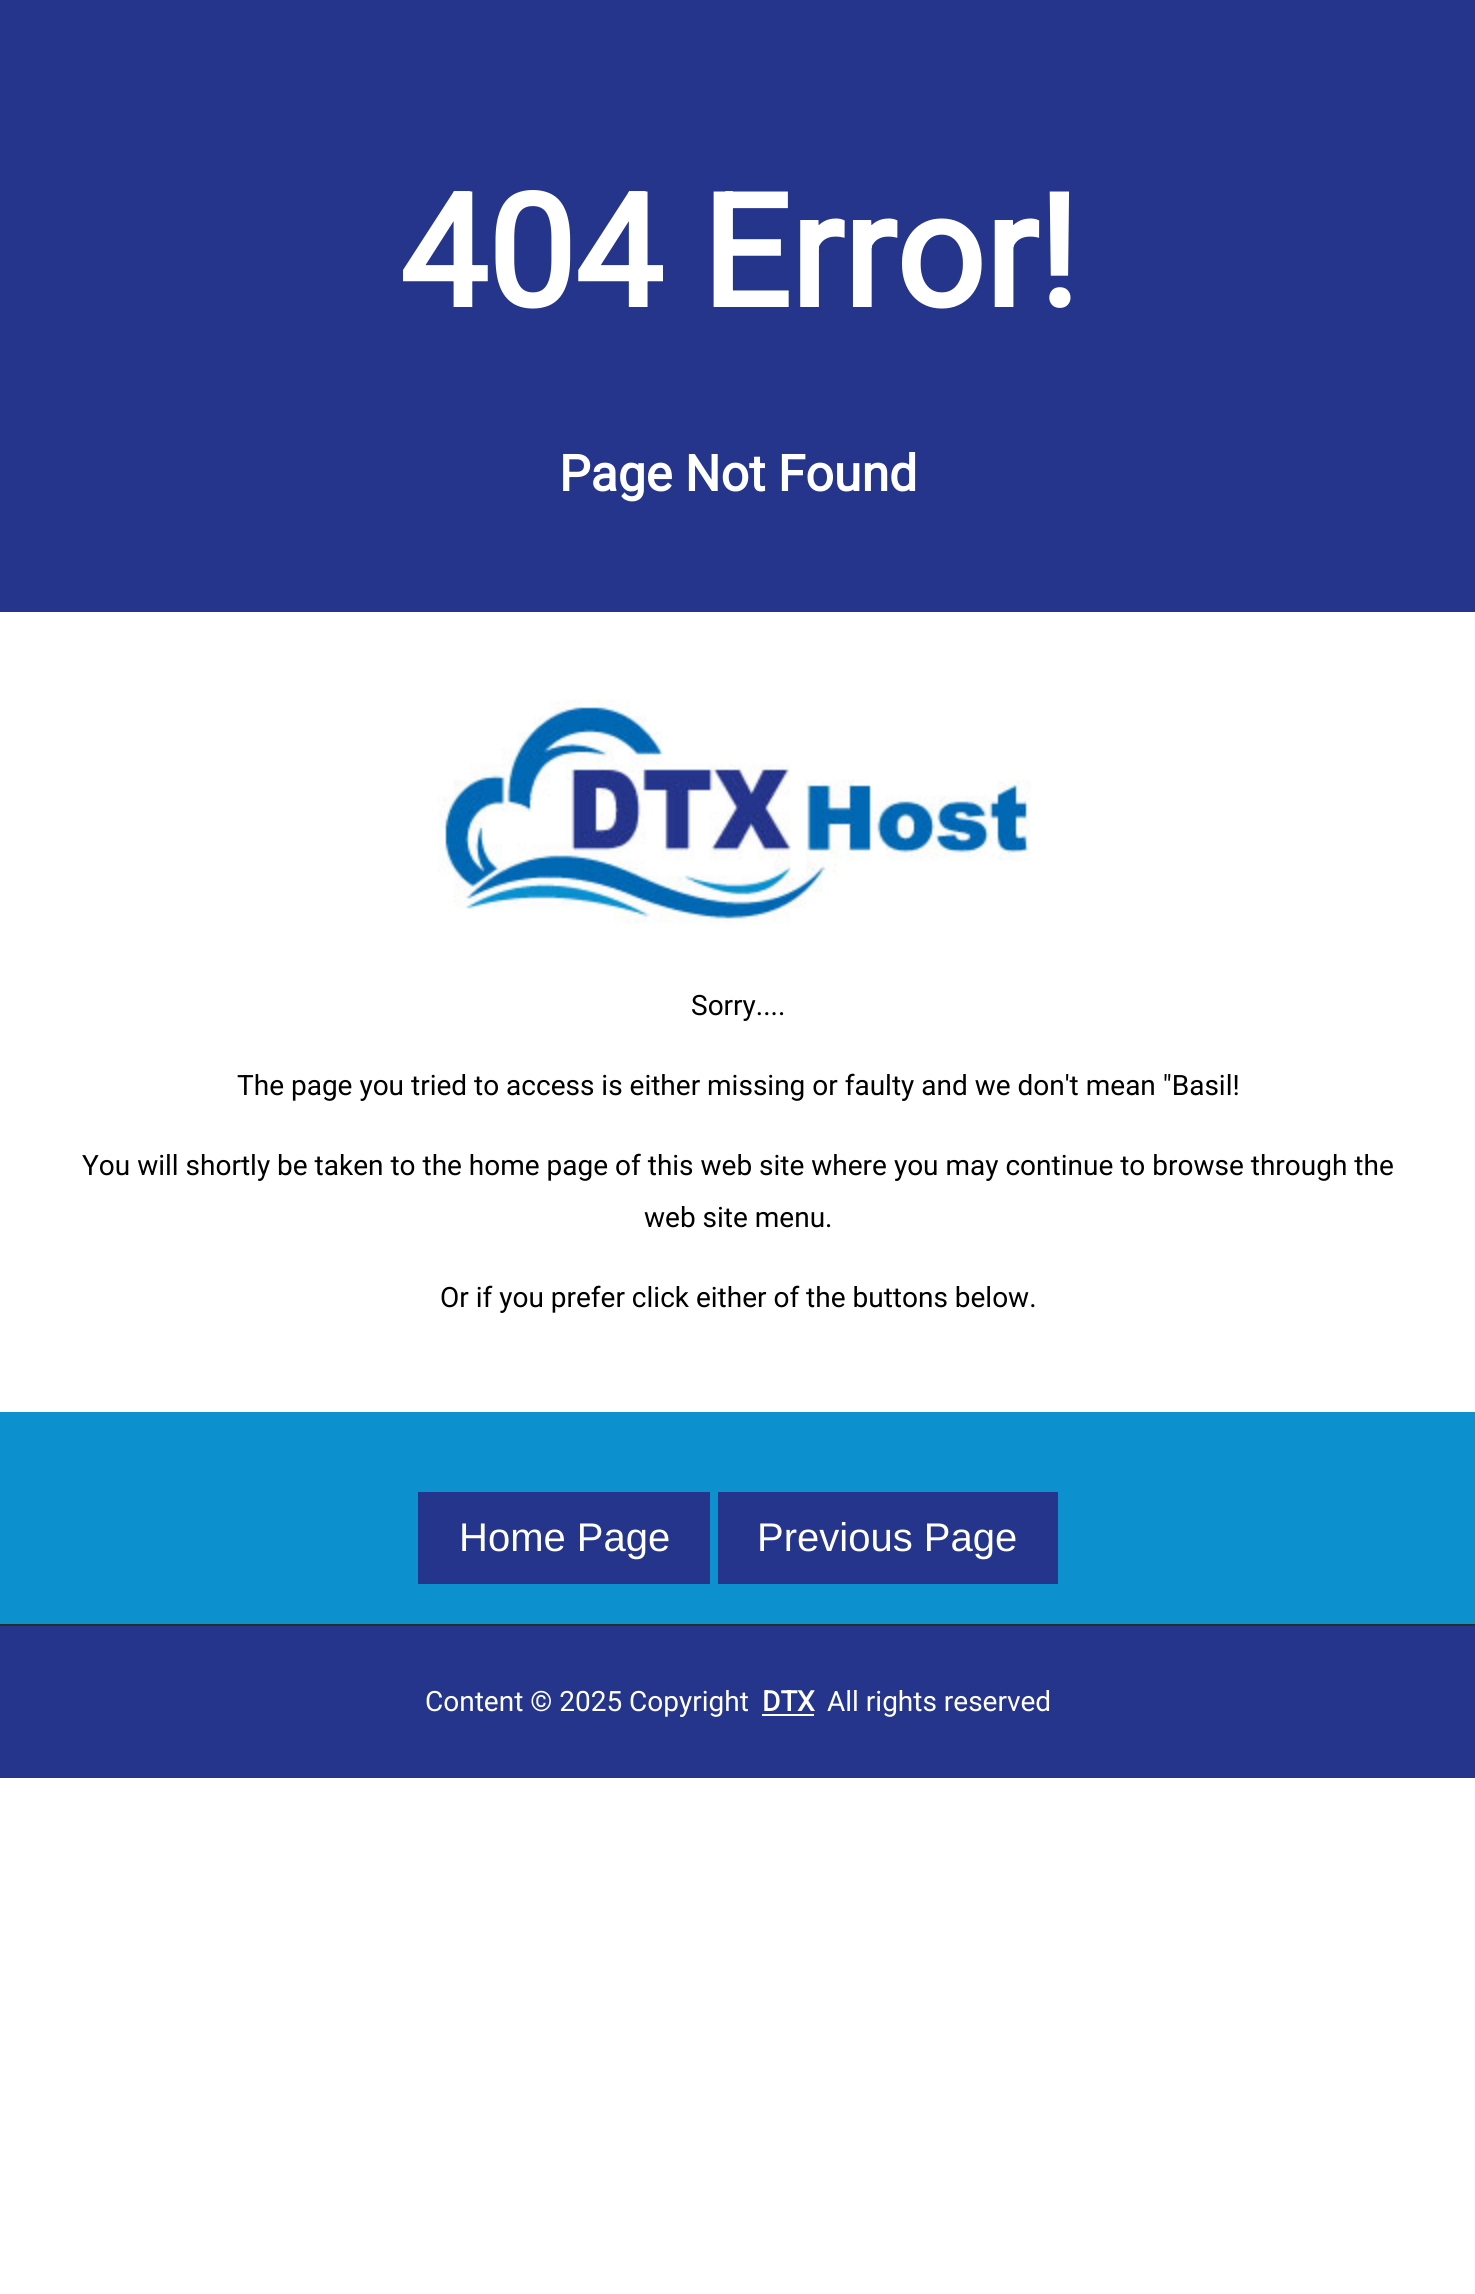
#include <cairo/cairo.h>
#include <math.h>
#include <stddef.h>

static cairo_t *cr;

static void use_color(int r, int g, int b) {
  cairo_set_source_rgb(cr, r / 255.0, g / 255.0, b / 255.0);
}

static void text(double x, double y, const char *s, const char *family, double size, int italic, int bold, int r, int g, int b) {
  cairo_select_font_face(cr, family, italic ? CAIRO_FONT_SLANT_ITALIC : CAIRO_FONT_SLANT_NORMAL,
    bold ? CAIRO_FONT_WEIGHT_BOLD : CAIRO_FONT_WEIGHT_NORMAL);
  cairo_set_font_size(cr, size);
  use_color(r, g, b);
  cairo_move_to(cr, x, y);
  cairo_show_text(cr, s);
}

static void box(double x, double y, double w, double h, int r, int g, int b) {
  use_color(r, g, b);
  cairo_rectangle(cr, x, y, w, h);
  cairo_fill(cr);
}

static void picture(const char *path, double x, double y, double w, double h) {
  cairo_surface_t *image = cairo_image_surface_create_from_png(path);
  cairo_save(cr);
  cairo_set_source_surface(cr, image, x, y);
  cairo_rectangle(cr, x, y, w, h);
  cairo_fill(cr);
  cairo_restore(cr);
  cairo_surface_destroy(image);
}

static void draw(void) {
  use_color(255, 255, 255);
  cairo_paint(cr);
  box(0, 0, 1475, 612, 38, 53, 140);
  picture("img_01.png", 438, 700, 593, 225);
  box(0, 1412, 1475, 212, 12, 144, 206);
  box(418, 1492, 292, 92, 37, 53, 139);
  box(718, 1492, 340, 92, 37, 53, 139);
  box(0, 1626, 1475, 152, 37, 53, 139);
  box(0, 1624, 1475, 2, 43, 43, 43);
  box(762, 1714, 52, 2, 255, 255, 255);
  text(399, 307, "404 Error!", "Roboto", 156, 0, 1, 255, 255, 255);
  text(559, 491, "Page Not Found", "Roboto", 50, 0, 1, 255, 255, 255);
  text(691, 1015, "Sorry....", "Roboto", 28, 0, 0, 0, 0, 0);
  text(237, 1095, "The page you tried to access is either missing or faulty and we don't mean \"Basil!", "Roboto", 28, 0, 0, 0, 0, 0);
  text(82, 1175, "You will shortly be taken to the home page of this web site where you may continue to browse through the", "Roboto", 28, 0, 0, 0, 0, 0);
  text(644, 1227, "web site menu.", "Roboto", 28, 0, 0, 0, 0, 0);
  text(440, 1307, "Or if you prefer click either of the buttons below.", "Roboto", 28, 0, 0, 0, 0, 0);
  text(459, 1551, "Home Page", "Liberation Sans", 40, 0, 0, 255, 255, 255);
  text(757, 1551, "Previous Page", "Liberation Sans", 40, 0, 0, 255, 255, 255);
  text(425, 1711, "Content © 2025 Copyright", "Roboto", 28, 0, 0, 255, 255, 255);
  text(762, 1711, "DTX", "Roboto", 28, 0, 1, 255, 255, 255);
  text(827, 1711, "All rights reserved", "Roboto", 28, 0, 0, 255, 255, 255);
}

int main(void) {
  cairo_surface_t *surface = cairo_image_surface_create(CAIRO_FORMAT_RGB24, 1475, 2294);
  cr = cairo_create(surface);
  cairo_font_options_t *options = cairo_font_options_create();
  cairo_font_options_set_hint_metrics(options, CAIRO_HINT_METRICS_OFF);
  cairo_font_options_set_hint_style(options, CAIRO_HINT_STYLE_NONE);
  cairo_set_font_options(cr, options);
  cairo_set_miter_limit(cr, 4);
  draw();
  cairo_surface_write_to_png(surface, "out.png");
  cairo_font_options_destroy(options);
  cairo_destroy(cr);
  cairo_surface_destroy(surface);
  return 0;
}
